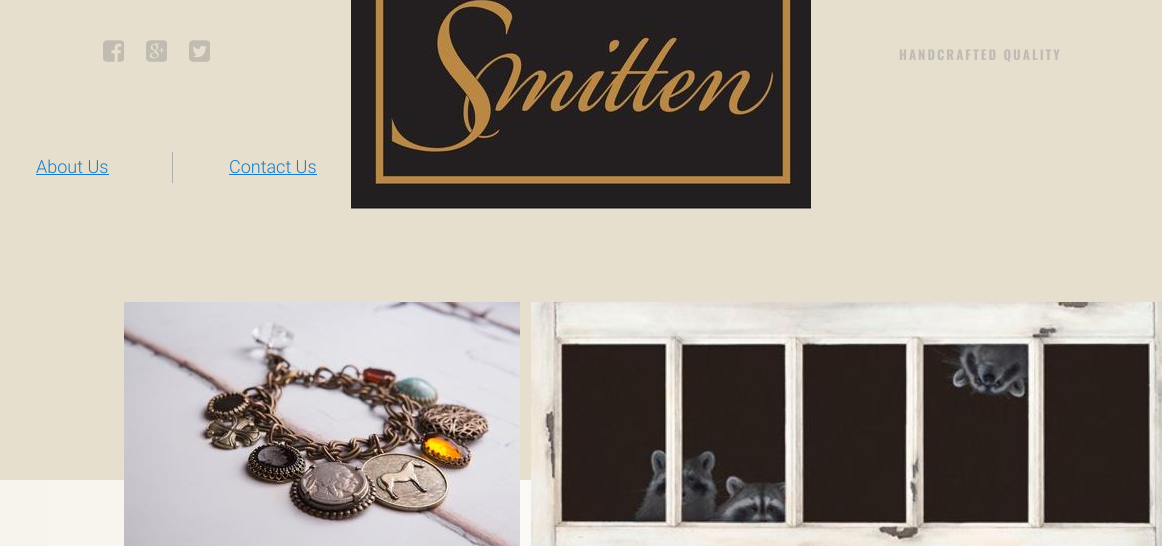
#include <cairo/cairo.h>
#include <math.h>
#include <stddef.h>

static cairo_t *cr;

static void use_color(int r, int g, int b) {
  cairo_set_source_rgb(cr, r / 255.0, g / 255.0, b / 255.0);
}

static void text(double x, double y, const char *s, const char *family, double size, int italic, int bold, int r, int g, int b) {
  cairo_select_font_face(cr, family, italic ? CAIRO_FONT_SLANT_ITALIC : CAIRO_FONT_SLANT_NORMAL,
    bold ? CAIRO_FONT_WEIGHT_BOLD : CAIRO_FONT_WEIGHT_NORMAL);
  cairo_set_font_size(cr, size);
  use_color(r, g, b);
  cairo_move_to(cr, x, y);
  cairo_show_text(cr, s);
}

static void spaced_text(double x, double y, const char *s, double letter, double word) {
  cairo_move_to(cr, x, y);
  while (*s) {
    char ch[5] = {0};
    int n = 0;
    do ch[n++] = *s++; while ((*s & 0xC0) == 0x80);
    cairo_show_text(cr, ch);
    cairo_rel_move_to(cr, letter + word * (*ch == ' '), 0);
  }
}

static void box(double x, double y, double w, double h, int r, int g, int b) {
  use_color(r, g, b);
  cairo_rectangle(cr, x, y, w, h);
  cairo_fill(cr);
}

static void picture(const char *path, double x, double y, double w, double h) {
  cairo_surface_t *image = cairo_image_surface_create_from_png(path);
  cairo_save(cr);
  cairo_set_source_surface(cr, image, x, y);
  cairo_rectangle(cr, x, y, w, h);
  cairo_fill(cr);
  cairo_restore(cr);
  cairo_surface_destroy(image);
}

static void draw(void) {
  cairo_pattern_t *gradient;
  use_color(255, 255, 255);
  cairo_paint(cr);
  gradient = cairo_pattern_create_linear(0, 273, 1162, 273);
  cairo_pattern_add_color_stop_rgba(gradient, 0, 0.969, 0.957, 0.929, 1);
  cairo_pattern_add_color_stop_rgba(gradient, 1, 1, 1, 1, 1);
  cairo_set_source(cr, gradient);
  cairo_pattern_destroy(gradient);
  cairo_rectangle(cr, 0, 480, 531, 66);
  cairo_fill(cr);
  box(0, 0, 1162, 480, 230, 223, 205);
  picture("img_01.png", 103, 40, 21, 22);
  picture("img_02.png", 146, 40, 21, 22);
  picture("img_03.png", 189, 40, 21, 22);
  picture("img_04.png", 351, 0, 460, 209);
  box(172, 152, 1, 31, 174, 174, 174);
  box(36, 174, 73, 1, 23, 123, 200);
  box(229, 174, 88, 1, 23, 123, 200);
  picture("img_05.png", 124, 302, 396, 244);
  picture("img_06.png", 531, 302, 631, 244);
  cairo_select_font_face(cr, "Oswald", CAIRO_FONT_SLANT_NORMAL, CAIRO_FONT_WEIGHT_BOLD);
  cairo_set_font_size(cr, 13);
  use_color(191, 188, 181);
  spaced_text(899, 60, "HANDCRAFTED QUALITY", 2, 0);
  text(36, 173, "About Us", "Roboto Light", 18, 0, 0, 23, 123, 200);
  text(229, 173, "Contact Us", "Roboto Light", 18, 0, 0, 23, 123, 200);
}

int main(void) {
  cairo_surface_t *surface = cairo_image_surface_create(CAIRO_FORMAT_RGB24, 1162, 546);
  cr = cairo_create(surface);
  cairo_font_options_t *options = cairo_font_options_create();
  cairo_font_options_set_hint_metrics(options, CAIRO_HINT_METRICS_OFF);
  cairo_font_options_set_hint_style(options, CAIRO_HINT_STYLE_NONE);
  cairo_set_font_options(cr, options);
  cairo_set_miter_limit(cr, 4);
  draw();
  cairo_surface_write_to_png(surface, "out.png");
  cairo_font_options_destroy(options);
  cairo_destroy(cr);
  cairo_surface_destroy(surface);
  return 0;
}
